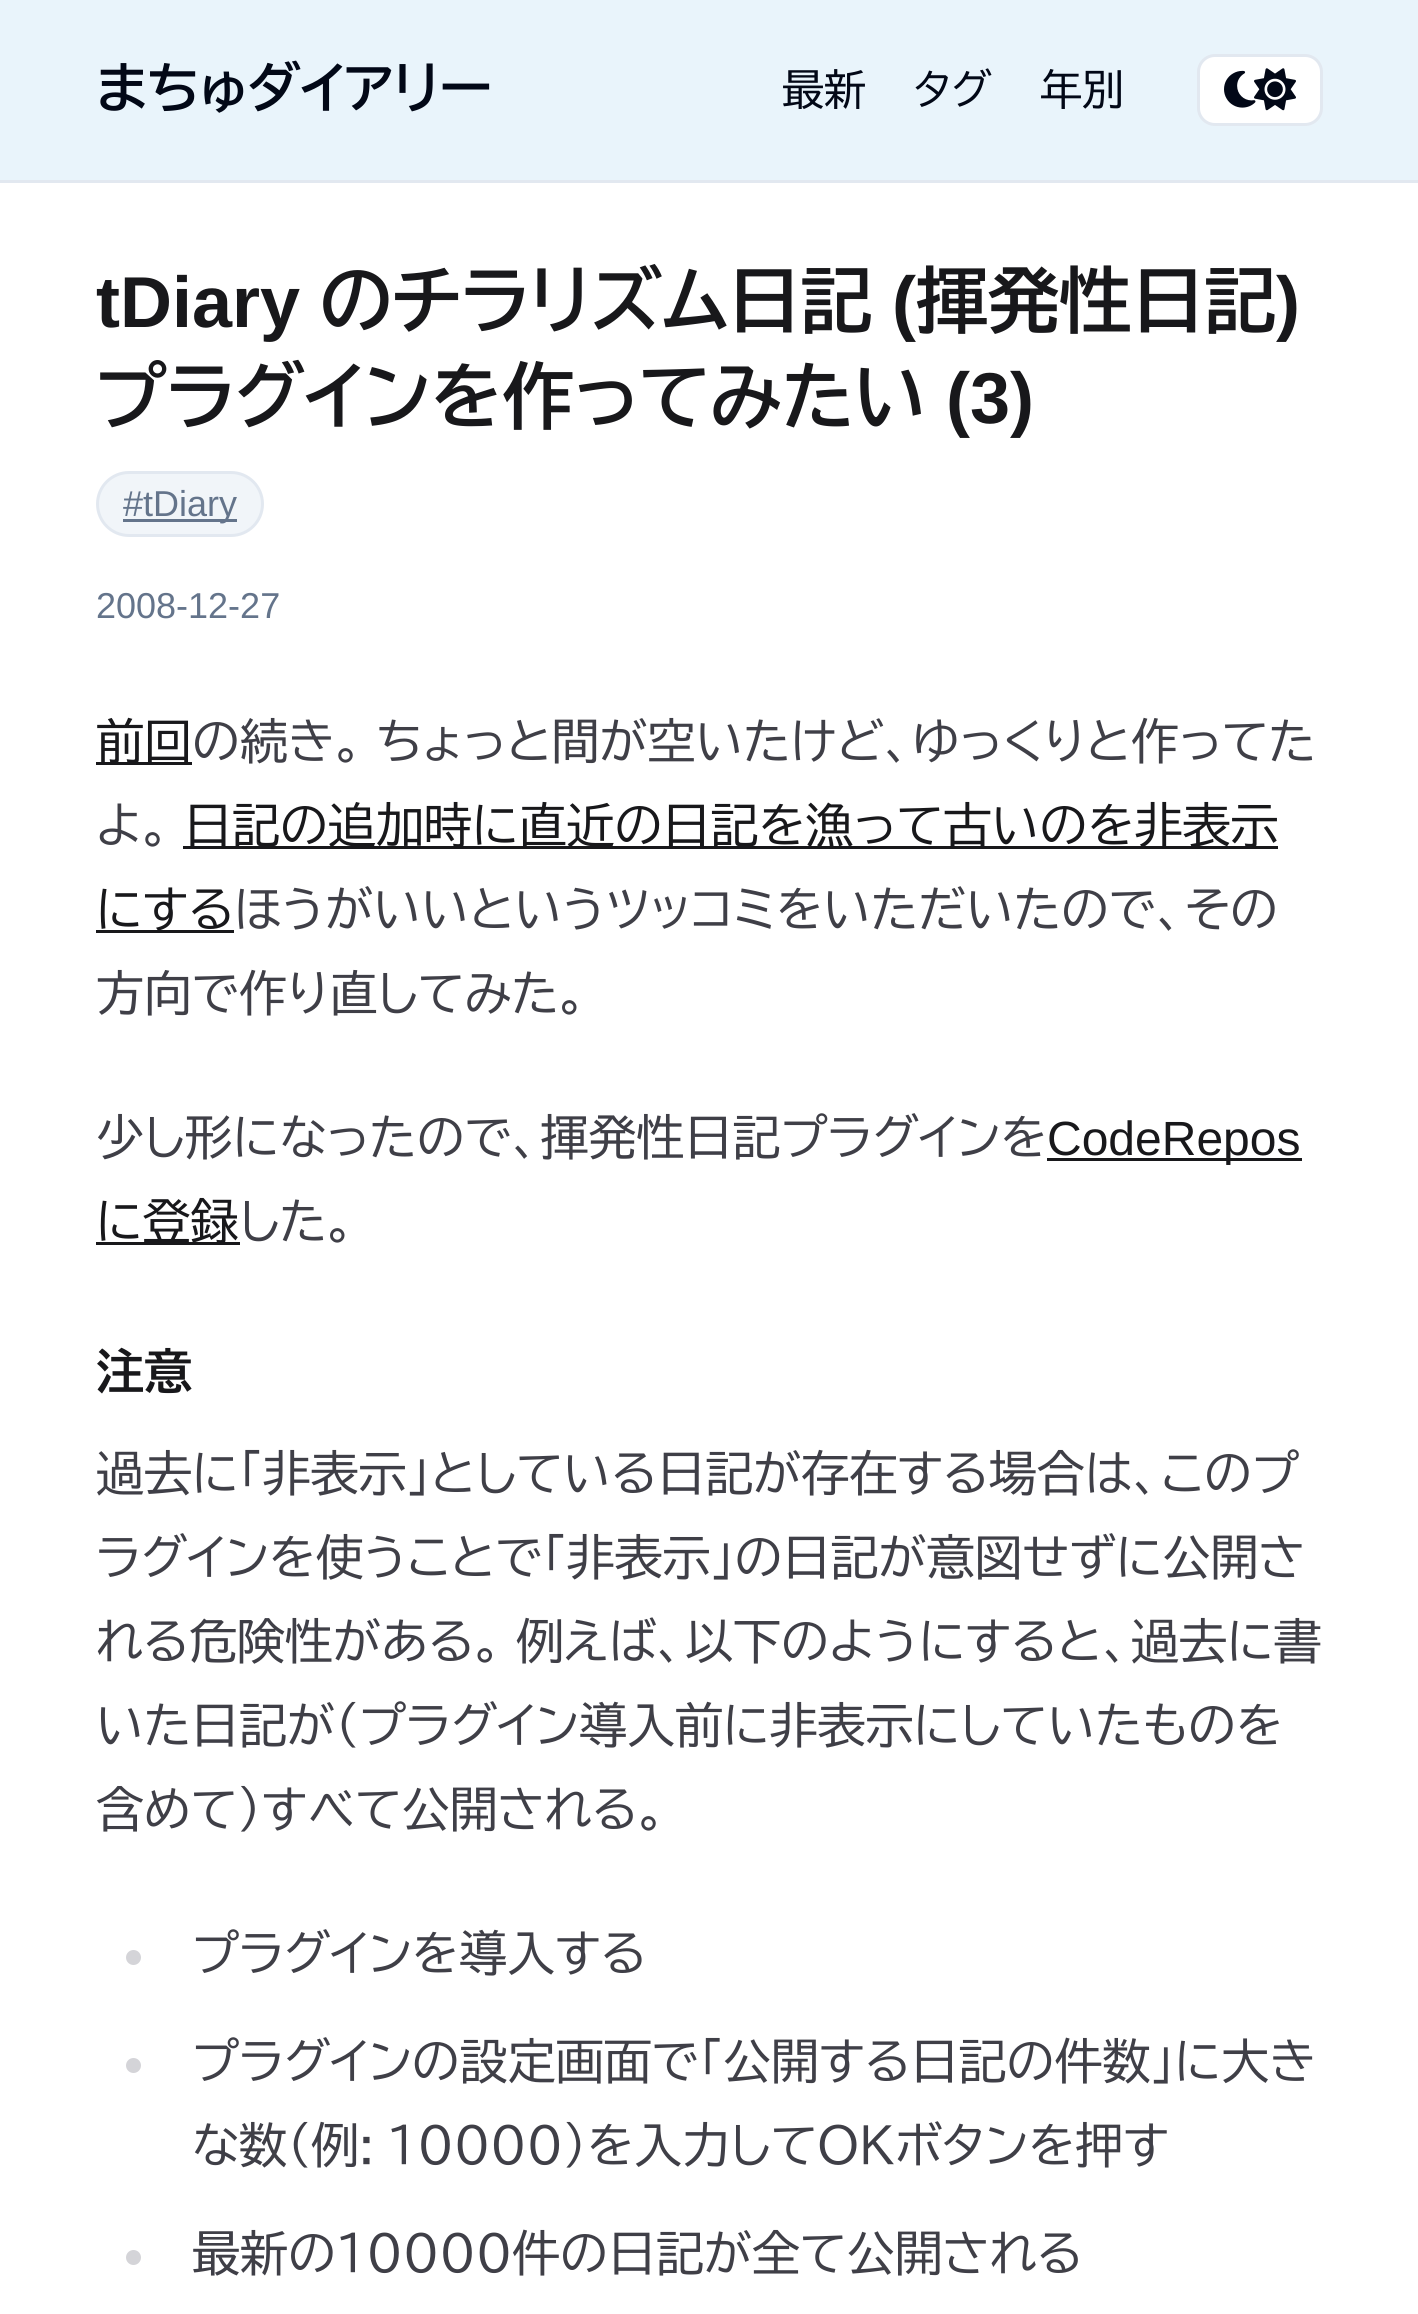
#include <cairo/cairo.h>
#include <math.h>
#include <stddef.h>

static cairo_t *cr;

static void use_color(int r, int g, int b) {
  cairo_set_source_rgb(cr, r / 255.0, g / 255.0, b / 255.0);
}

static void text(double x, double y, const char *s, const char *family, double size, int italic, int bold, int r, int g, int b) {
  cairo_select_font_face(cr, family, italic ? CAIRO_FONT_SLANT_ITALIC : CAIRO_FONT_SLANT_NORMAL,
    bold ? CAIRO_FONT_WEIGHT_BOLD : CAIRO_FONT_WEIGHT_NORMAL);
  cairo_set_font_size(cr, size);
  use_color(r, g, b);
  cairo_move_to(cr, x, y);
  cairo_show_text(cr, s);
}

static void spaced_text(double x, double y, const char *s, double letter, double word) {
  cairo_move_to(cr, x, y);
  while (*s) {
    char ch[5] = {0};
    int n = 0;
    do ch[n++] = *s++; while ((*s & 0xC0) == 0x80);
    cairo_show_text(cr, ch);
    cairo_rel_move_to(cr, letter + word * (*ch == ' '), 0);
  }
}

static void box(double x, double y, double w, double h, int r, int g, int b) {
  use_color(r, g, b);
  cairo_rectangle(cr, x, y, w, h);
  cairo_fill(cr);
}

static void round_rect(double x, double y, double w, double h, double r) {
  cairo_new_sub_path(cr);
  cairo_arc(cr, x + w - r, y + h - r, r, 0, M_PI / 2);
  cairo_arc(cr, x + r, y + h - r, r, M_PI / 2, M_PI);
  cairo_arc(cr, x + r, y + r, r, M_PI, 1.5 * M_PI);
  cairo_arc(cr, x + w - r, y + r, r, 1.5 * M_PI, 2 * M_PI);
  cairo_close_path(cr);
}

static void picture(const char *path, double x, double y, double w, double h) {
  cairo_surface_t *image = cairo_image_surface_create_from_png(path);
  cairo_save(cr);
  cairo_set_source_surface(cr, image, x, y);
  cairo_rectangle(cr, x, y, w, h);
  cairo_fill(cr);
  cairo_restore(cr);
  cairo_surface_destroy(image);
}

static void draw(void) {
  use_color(255, 255, 255);
  cairo_paint(cr);
  box(0, 0, 1418, 180, 233, 244, 251);
  box(0, 180, 1418, 3, 226, 232, 240);
  use_color(255, 255, 255);
  round_rect(1198.5, 55.5, 123, 69, 16.5);
  cairo_fill_preserve(cr);
  use_color(226, 232, 240);
  cairo_set_line_width(cr, 3);
  cairo_stroke(cr);
  picture("img_01.png", 1224, 70, 32, 38);
  picture("img_02.png", 1254, 68, 42, 43);
  use_color(241, 245, 249);
  round_rect(97.5, 472.5, 165, 63, 31.5);
  cairo_fill_preserve(cr);
  use_color(226, 232, 240);
  cairo_stroke(cr);
  box(123, 519, 114, 3, 100, 116, 139);
  box(96, 762, 96, 3, 24, 24, 27);
  box(183, 846, 1095, 3, 24, 24, 27);
  box(96, 930, 138, 3, 24, 24, 27);
  box(1047, 1158, 255, 3, 24, 24, 27);
  box(96, 1242, 144, 3, 24, 24, 27);
  use_color(212, 212, 216);
  cairo_arc(cr, 133.5, 1957.5, 7.5, 0, 2 * M_PI);
  cairo_fill(cr);
  cairo_arc(cr, 133.5, 2065.5, 7.5, 0, 2 * M_PI);
  cairo_fill(cr);
  cairo_arc(cr, 133.5, 2257.5, 7.5, 0, 2 * M_PI);
  cairo_fill(cr);
  text(96, 108, "まちゅダイアリー", "BIZ UDPGothic", 54, 0, 1, 2, 8, 23);
  text(782, 105, "最新", "BIZ UDPGothic", 42, 0, 0, 2, 8, 23);
  text(914, 105, "タグ", "BIZ UDPGothic", 42, 0, 0, 2, 8, 23);
  text(1040, 105, "年別", "BIZ UDPGothic", 42, 0, 0, 2, 8, 23);
  text(96, 327, "tDiary", "Liberation Sans", 72, 0, 1, 24, 24, 27);
  text(320, 327, "のチラリズム日記", "BIZ UDPGothic", 72, 0, 1, 24, 24, 27);
  text(892, 327, "(", "Liberation Sans", 72, 0, 1, 24, 24, 27);
  text(916, 327, "揮発性日記", "BIZ UDPGothic", 72, 0, 1, 24, 24, 27);
  text(1276, 327, ")", "Liberation Sans", 72, 0, 1, 24, 24, 27);
  text(96, 423, "プラグインを作ってみたい", "BIZ UDPGothic", 72, 0, 1, 24, 24, 27);
  text(946, 423, "(3)", "Liberation Sans", 72, 0, 1, 24, 24, 27);
  text(123, 516, "#tDiary", "Liberation Sans", 36, 0, 0, 100, 116, 139);
  text(96, 618, "2008-12-27", "Liberation Sans", 36, 0, 0, 100, 116, 139);
  text(96, 759, "前回", "BIZ UDPGothic", 48, 0, 0, 24, 24, 27);
  use_color(63, 63, 71);
  spaced_text(192, 759, "の続き。 ちょっと間が空いたけど、ゆっくりと作ってた", 0, -3);
  text(96, 843, "よ。", "BIZ UDPGothic", 48, 0, 0, 63, 63, 71);
  text(184, 843, "日記の追加時に直近の日記を漁って古いのを非表示", "BIZ UDPGothic", 48, 0, 0, 24, 24, 27);
  text(96, 927, "にする", "BIZ UDPGothic", 48, 0, 0, 24, 24, 27);
  text(234, 927, "ほうがいいというツッコミをいただいたので、その", "BIZ UDPGothic", 48, 0, 0, 63, 63, 71);
  text(96, 1011, "方向で作り直してみた。", "BIZ UDPGothic", 48, 0, 0, 63, 63, 71);
  text(96, 1155, "少し形になったので、揮発性日記プラグインを", "BIZ UDPGothic", 48, 0, 0, 63, 63, 71);
  text(1047, 1155, "CodeRepos", "Liberation Sans", 48, 0, 0, 24, 24, 27);
  text(96, 1239, "に登録", "BIZ UDPGothic", 48, 0, 0, 24, 24, 27);
  text(239, 1239, "した。", "BIZ UDPGothic", 48, 0, 0, 63, 63, 71);
  text(96, 1389, "注意", "BIZ UDPGothic", 48, 0, 1, 24, 24, 27);
  text(96, 1491, "過去に「非表示」としている日記が存在する場合は、このプ", "BIZ UDPGothic", 48, 0, 0, 63, 63, 71);
  text(96, 1575, "ラグインを使うことで「非表示」の日記が意図せずに公開さ", "BIZ UDPGothic", 48, 0, 0, 63, 63, 71);
  spaced_text(96, 1659, "れる危険性がある。 例えば、以下のようにすると、過去に書", 0, -3);
  text(96, 1743, "いた日記が（プラグイン導入前に非表示にしていたものを", "BIZ UDPGothic", 48, 0, 0, 63, 63, 71);
  text(96, 1827, "含めて）すべて公開される。", "BIZ UDPGothic", 48, 0, 0, 63, 63, 71);
  text(192, 1971, "プラグインを導入する", "BIZ UDPGothic", 48, 0, 0, 63, 63, 71);
  text(192, 2079, "プラグインの設定画面で「公開する日記の件数」に大き", "BIZ UDPGothic", 48, 0, 0, 63, 63, 71);
  spaced_text(192, 2163, "な数（例: 10000）を入力してOKボタンを押す", 0, -3);
  text(192, 2271, "最新の10000件の日記が全て公開される", "BIZ UDPGothic", 48, 0, 0, 63, 63, 71);
}

int main(void) {
  cairo_surface_t *surface = cairo_image_surface_create(CAIRO_FORMAT_RGB24, 1418, 2314);
  cr = cairo_create(surface);
  cairo_font_options_t *options = cairo_font_options_create();
  cairo_font_options_set_hint_metrics(options, CAIRO_HINT_METRICS_OFF);
  cairo_font_options_set_hint_style(options, CAIRO_HINT_STYLE_NONE);
  cairo_set_font_options(cr, options);
  cairo_set_miter_limit(cr, 4);
  draw();
  cairo_surface_write_to_png(surface, "out.png");
  cairo_font_options_destroy(options);
  cairo_destroy(cr);
  cairo_surface_destroy(surface);
  return 0;
}
